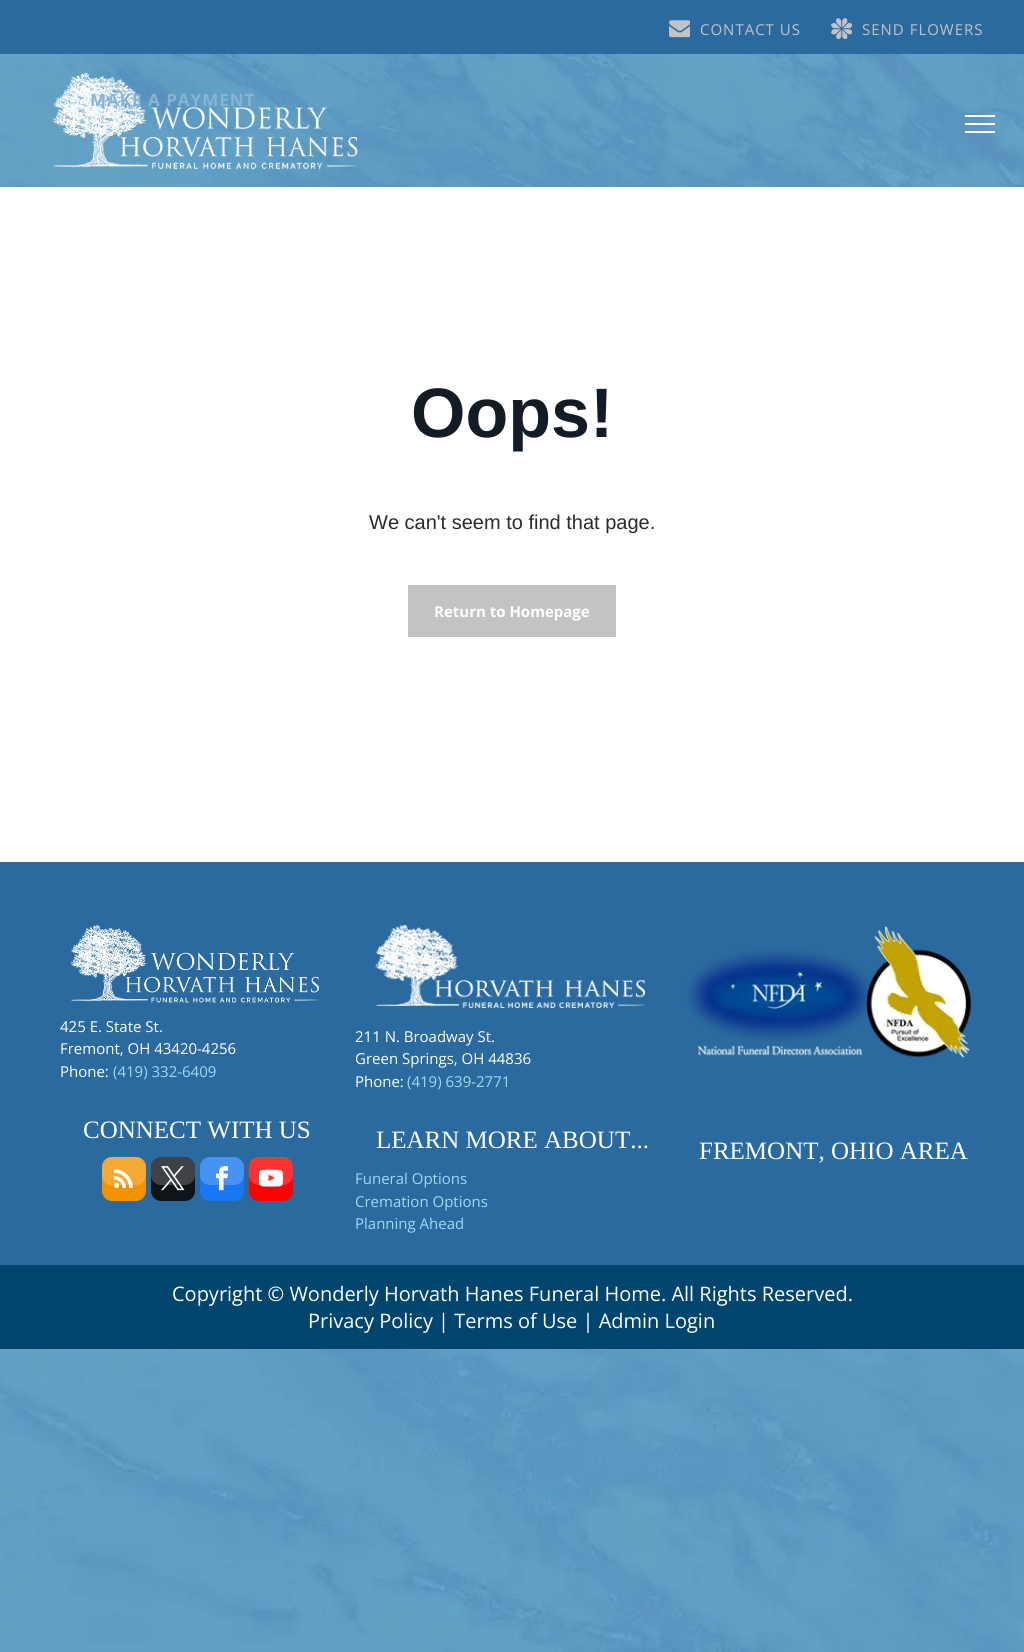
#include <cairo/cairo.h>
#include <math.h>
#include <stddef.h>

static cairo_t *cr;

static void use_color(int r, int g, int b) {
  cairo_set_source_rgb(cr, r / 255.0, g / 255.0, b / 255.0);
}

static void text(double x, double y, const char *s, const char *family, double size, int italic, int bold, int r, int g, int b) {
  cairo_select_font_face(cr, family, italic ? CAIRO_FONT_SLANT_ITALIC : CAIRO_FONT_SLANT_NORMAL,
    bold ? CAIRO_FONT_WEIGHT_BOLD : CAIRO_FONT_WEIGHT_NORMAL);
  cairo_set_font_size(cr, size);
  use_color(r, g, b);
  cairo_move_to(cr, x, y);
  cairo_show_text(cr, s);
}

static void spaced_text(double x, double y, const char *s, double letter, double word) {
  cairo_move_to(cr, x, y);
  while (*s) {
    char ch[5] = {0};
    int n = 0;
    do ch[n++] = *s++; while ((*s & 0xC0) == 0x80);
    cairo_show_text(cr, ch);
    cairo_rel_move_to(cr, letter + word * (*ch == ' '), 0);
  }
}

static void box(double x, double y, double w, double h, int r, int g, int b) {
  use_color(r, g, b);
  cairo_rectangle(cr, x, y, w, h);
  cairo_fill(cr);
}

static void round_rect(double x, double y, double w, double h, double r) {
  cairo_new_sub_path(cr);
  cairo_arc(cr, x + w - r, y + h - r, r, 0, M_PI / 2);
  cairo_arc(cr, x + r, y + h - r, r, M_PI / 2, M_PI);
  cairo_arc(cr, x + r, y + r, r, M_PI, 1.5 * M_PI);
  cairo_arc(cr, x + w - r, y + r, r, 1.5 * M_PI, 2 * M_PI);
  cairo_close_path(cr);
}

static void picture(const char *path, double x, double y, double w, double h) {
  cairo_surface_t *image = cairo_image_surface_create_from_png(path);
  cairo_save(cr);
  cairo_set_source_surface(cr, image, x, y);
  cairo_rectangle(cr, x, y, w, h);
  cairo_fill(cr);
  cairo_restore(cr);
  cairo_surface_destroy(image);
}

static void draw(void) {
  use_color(255, 255, 255);
  cairo_paint(cr);
  picture("img_01.png", 0, 1349, 1024, 303);
  box(0, 0, 1024, 54, 42, 106, 158);
  picture("img_02.png", 669, 20, 21, 18);
  picture("img_03.png", 831, 18, 21, 21);
  picture("img_04.png", 0, 54, 1024, 133);
  picture("img_05.png", 53, 72, 305, 98);
  box(965, 115, 30, 2, 255, 255, 255);
  box(965, 123, 30, 2, 255, 255, 255);
  box(965, 131, 30, 2, 255, 255, 255);
  box(408, 585, 208, 52, 194, 195, 197);
  box(0, 862, 1024, 403, 42, 106, 158);
  picture("img_06.png", 70, 925, 249, 78);
  use_color(243, 146, 0);
  round_rect(102, 1157, 44, 44, 10);
  cairo_fill(cr);
  cairo_set_source_rgba(cr, 1, 1, 1, 0.2);
  round_rect(102, 1157, 44, 28, 10);
  cairo_fill(cr);
  picture("img_07.png", 114, 1169, 19, 19);
  use_color(15, 20, 25);
  round_rect(151, 1157, 44, 44, 10);
  cairo_fill(cr);
  cairo_set_source_rgba(cr, 1, 1, 1, 0.2);
  round_rect(151, 1157, 44, 28, 10);
  cairo_fill(cr);
  picture("img_08.png", 161, 1166, 24, 25);
  use_color(24, 119, 242);
  round_rect(200, 1157, 44, 44, 10);
  cairo_fill(cr);
  cairo_set_source_rgba(cr, 1, 1, 1, 0.2);
  round_rect(200, 1157, 44, 28, 10);
  cairo_fill(cr);
  picture("img_09.png", 216, 1166, 13, 25);
  use_color(255, 0, 0);
  round_rect(249, 1157, 44, 44, 10);
  cairo_fill(cr);
  cairo_set_source_rgba(cr, 1, 1, 1, 0.2);
  round_rect(249, 1157, 44, 28, 10);
  cairo_fill(cr);
  picture("img_10.png", 259, 1169, 25, 18);
  picture("img_11.png", 375, 924, 270, 84);
  picture("img_12.png", 687, 926, 284, 132);
  box(0, 1265, 1024, 84, 0, 69, 109);
  cairo_select_font_face(cr, "Open Sans", CAIRO_FONT_SLANT_NORMAL, CAIRO_FONT_WEIGHT_NORMAL);
  cairo_set_font_size(cr, 15);
  use_color(194, 195, 197);
  spaced_text(700, 35, "CONTACT US", 1, 0);
  spaced_text(862, 35, "SEND FLOWERS", 1, 0);
  text(411, 437, "Oops!", "Liberation Sans", 70, 0, 1, 19, 28, 37);
  text(369, 529, "We can't seem to find that page.", "Liberation Sans", 20, 0, 0, 43, 43, 43);
  text(434, 617, "Return to Homepage", "Open Sans", 15, 0, 1, 255, 255, 255);
  text(60, 1032, "425 E. State St.", "Open Sans", 15, 0, 0, 255, 255, 255);
  text(60, 1054, "Fremont, OH 43420-4256", "Open Sans", 15, 0, 0, 255, 255, 255);
  text(60, 1077, "Phone:", "Open Sans", 15, 0, 0, 255, 255, 255);
  text(113, 1077, "(419) 332-6409", "Open Sans", 15, 0, 0, 162, 215, 248);
  text(83, 1138, "CONNECT WITH US", "Liberation Serif", 25, 0, 0, 255, 255, 255);
  text(355, 1042, "211 N. Broadway St.", "Open Sans", 15, 0, 0, 255, 255, 255);
  text(355, 1064, "Green Springs, OH 44836", "Open Sans", 15, 0, 0, 255, 255, 255);
  text(355, 1087, "Phone:", "Open Sans", 15, 0, 0, 255, 255, 255);
  text(407, 1087, "(419) 639-2771", "Open Sans", 15, 0, 0, 162, 215, 248);
  text(376, 1148, "LEARN MORE ABOUT...", "Liberation Serif", 25, 0, 0, 255, 255, 255);
  text(355, 1184, "Funeral Options", "Open Sans", 15, 0, 0, 162, 215, 248);
  text(355, 1207, "Cremation Options", "Open Sans", 15, 0, 0, 162, 215, 248);
  text(355, 1229, "Planning Ahead", "Open Sans", 15, 0, 0, 162, 215, 248);
  text(699, 1159, "FREMONT, OHIO AREA", "Liberation Serif", 25, 0, 0, 255, 255, 255);
  text(172, 1301, "Copyright © Wonderly Horvath Hanes Funeral Home. All Rights Reserved.", "Open Sans", 20, 0, 0, 255, 255, 255);
  text(308, 1328, "Privacy Policy | Terms of Use | Admin Login", "Open Sans", 20, 0, 0, 255, 255, 255);
  cairo_select_font_face(cr, "Open Sans", CAIRO_FONT_SLANT_NORMAL, CAIRO_FONT_WEIGHT_BOLD);
  cairo_set_font_size(cr, 17);
  use_color(135, 180, 210);
  spaced_text(90, 106, "MAKE A PAYMENT", 1, 0);
}

int main(void) {
  cairo_surface_t *surface = cairo_image_surface_create(CAIRO_FORMAT_RGB24, 1024, 1652);
  cr = cairo_create(surface);
  cairo_font_options_t *options = cairo_font_options_create();
  cairo_font_options_set_hint_metrics(options, CAIRO_HINT_METRICS_OFF);
  cairo_font_options_set_hint_style(options, CAIRO_HINT_STYLE_NONE);
  cairo_set_font_options(cr, options);
  cairo_set_miter_limit(cr, 4);
  draw();
  cairo_surface_write_to_png(surface, "out.png");
  cairo_font_options_destroy(options);
  cairo_destroy(cr);
  cairo_surface_destroy(surface);
  return 0;
}
